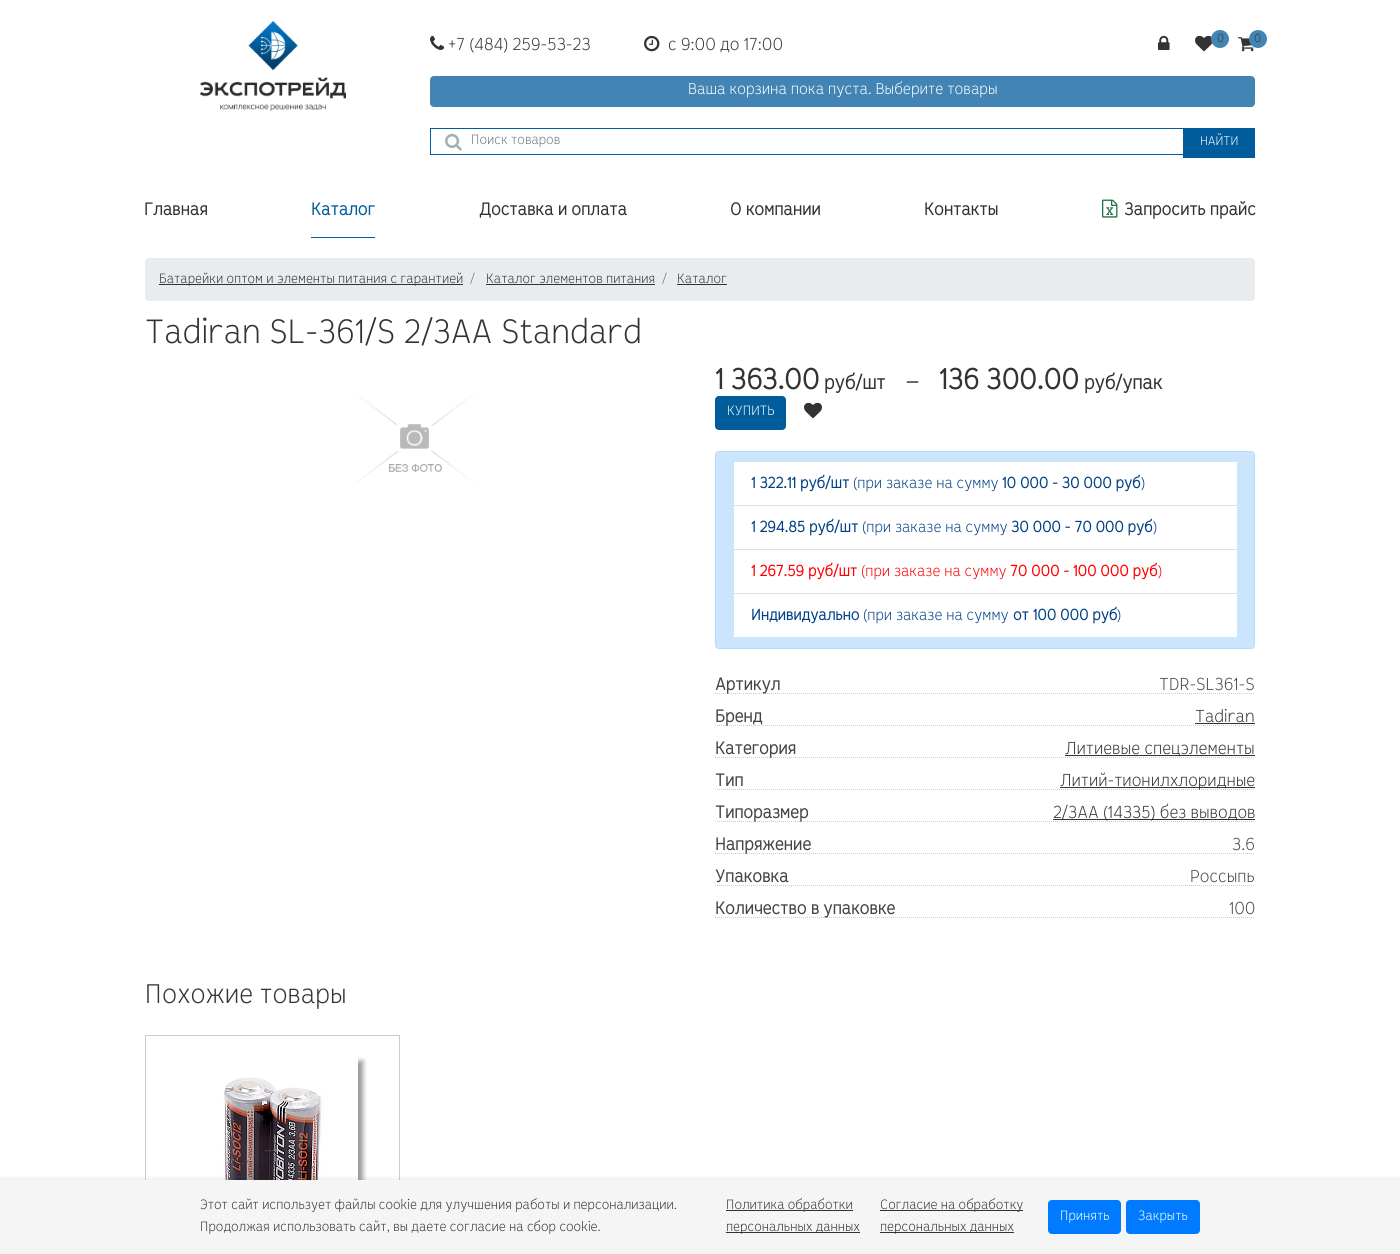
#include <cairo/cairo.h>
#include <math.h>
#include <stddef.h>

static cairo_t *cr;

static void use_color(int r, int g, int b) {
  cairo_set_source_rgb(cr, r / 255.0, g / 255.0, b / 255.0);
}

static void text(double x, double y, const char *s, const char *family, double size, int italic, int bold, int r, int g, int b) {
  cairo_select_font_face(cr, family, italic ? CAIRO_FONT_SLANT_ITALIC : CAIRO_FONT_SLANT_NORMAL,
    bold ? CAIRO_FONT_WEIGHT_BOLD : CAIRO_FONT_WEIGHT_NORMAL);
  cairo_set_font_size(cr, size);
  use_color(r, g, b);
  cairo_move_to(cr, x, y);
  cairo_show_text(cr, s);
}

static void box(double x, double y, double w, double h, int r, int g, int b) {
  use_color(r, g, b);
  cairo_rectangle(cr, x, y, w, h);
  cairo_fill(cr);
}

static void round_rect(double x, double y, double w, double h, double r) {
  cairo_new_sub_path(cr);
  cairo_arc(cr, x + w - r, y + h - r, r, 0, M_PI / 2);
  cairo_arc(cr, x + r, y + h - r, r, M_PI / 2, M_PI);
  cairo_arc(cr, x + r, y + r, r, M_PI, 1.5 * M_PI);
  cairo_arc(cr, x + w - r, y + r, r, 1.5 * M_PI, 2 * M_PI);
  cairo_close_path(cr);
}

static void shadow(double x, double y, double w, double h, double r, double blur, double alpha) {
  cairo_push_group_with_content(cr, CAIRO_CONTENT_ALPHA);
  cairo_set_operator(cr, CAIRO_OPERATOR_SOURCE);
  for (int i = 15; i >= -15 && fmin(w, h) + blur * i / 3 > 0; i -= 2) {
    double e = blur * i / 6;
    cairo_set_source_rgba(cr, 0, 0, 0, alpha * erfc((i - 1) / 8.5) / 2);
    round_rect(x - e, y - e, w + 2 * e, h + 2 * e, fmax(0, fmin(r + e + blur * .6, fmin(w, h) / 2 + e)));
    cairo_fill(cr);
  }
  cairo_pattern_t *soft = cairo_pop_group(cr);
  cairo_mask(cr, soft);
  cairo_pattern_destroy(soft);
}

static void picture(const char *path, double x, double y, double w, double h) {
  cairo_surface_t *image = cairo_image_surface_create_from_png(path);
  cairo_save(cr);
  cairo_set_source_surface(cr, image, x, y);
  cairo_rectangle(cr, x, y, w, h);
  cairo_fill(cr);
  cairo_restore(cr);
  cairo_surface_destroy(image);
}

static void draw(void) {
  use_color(255, 255, 255);
  cairo_paint(cr);
  picture("img_01.png", 200, 21, 146, 90);
  picture("img_02.png", 430, 35, 15, 15);
  picture("img_03.png", 644, 35, 16, 17);
  picture("img_04.png", 1158, 35, 12, 15);
  picture("img_05.png", 1195, 35, 18, 17);
  use_color(66, 133, 180);
  cairo_arc(cr, 1220, 39, 9, 0, 2 * M_PI);
  cairo_fill(cr);
  picture("img_06.png", 1238, 37, 16, 15);
  cairo_arc(cr, 1258, 39, 9, 0, 2 * M_PI);
  cairo_fill(cr);
  round_rect(430.5, 76.5, 824, 30, 3.5);
  cairo_fill_preserve(cr);
  cairo_set_line_width(cr, 1);
  cairo_stroke(cr);
  cairo_rectangle(cr, 430.5, 128.5, 824, 26);
  use_color(0, 92, 155);
  cairo_stroke(cr);
  picture("img_07.png", 445, 133, 17, 18);
  box(1183, 129, 72, 29, 0, 92, 155);
  box(311, 237, 64, 1, 0, 92, 155);
  picture("img_08.png", 1102, 199, 16, 19);
  use_color(233, 236, 239);
  round_rect(145, 258, 1110, 43, 4);
  cairo_fill(cr);
  box(159, 284, 304, 1, 51, 51, 51);
  box(486, 284, 169, 1, 51, 51, 51);
  box(677, 284, 50, 1, 51, 51, 51);
  picture("img_09.png", 355, 393, 120, 91);
  use_color(0, 92, 155);
  round_rect(715, 396, 71, 34, 4);
  cairo_fill(cr);
  picture("img_05.png", 804, 402, 18, 17);
  use_color(204, 229, 255);
  round_rect(715.5, 451.5, 539, 197, 3.5);
  cairo_fill_preserve(cr);
  use_color(184, 218, 255);
  cairo_stroke(cr);
  box(734, 462, 503, 43, 255, 255, 255);
  box(734, 506, 503, 43, 255, 255, 255);
  box(734, 505, 503, 1, 223, 223, 223);
  box(734, 550, 503, 43, 255, 255, 255);
  box(734, 549, 503, 1, 223, 223, 223);
  box(734, 594, 503, 43, 255, 255, 255);
  box(734, 593, 503, 1, 223, 223, 223);
  cairo_new_path(cr);
  cairo_move_to(cr, 715, 693.5);
  cairo_line_to(cr, 1255, 693.5);
  use_color(204, 204, 204);
  cairo_set_dash(cr, (double[]){1, 1}, 2, 0);
  cairo_stroke(cr);
  cairo_new_path(cr);
  cairo_move_to(cr, 715, 725.5);
  cairo_line_to(cr, 1255, 725.5);
  cairo_stroke(cr);
  box(1195, 723, 60, 1, 51, 51, 51);
  cairo_new_path(cr);
  cairo_move_to(cr, 715, 757.5);
  cairo_line_to(cr, 1255, 757.5);
  use_color(204, 204, 204);
  cairo_stroke(cr);
  box(1065, 755, 190, 1, 51, 51, 51);
  cairo_new_path(cr);
  cairo_move_to(cr, 715, 789.5);
  cairo_line_to(cr, 1255, 789.5);
  use_color(204, 204, 204);
  cairo_stroke(cr);
  box(1060, 787, 195, 1, 51, 51, 51);
  cairo_new_path(cr);
  cairo_move_to(cr, 715, 821.5);
  cairo_line_to(cr, 1255, 821.5);
  use_color(204, 204, 204);
  cairo_stroke(cr);
  box(1053, 819, 202, 1, 51, 51, 51);
  cairo_new_path(cr);
  cairo_move_to(cr, 715, 853.5);
  cairo_line_to(cr, 1255, 853.5);
  use_color(204, 204, 204);
  cairo_stroke(cr);
  cairo_new_path(cr);
  cairo_move_to(cr, 715, 885.5);
  cairo_line_to(cr, 1255, 885.5);
  cairo_stroke(cr);
  cairo_new_path(cr);
  cairo_move_to(cr, 715, 917.5);
  cairo_line_to(cr, 1255, 917.5);
  cairo_stroke(cr);
  cairo_rectangle(cr, 145.5, 1035.5, 254, 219);
  cairo_set_dash(cr, NULL, 0, 0);
  cairo_stroke(cr);
  cairo_save(cr);
  cairo_rectangle(cr, 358, 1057, 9, 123);
  cairo_clip(cr);
  use_color(0, 0, 0);
  shadow(187, 1061, 176, 176, 0, 2.5, 0.4);
  cairo_restore(cr);
  picture("img_10.png", 222, 1077, 109, 103);
  use_color(0, 0, 0);
  shadow(0, 1179, 1400, 74, 0, 2.5, 0.1);
  box(0, 1180, 1400, 74, 245, 245, 245);
  box(726, 1210, 127, 1, 51, 51, 51);
  box(726, 1232, 134, 1, 51, 51, 51);
  box(880, 1210, 143, 1, 51, 51, 51);
  box(880, 1232, 134, 1, 51, 51, 51);
  use_color(0, 123, 255);
  round_rect(1048, 1200, 73, 34, 4);
  cairo_fill(cr);
  round_rect(1126, 1200, 74, 34, 4);
  cairo_fill(cr);
  text(448, 50, "+7 (484) 259-53-23", "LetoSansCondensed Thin", 18, 0, 0, 51, 51, 51);
  text(668, 50, "с 9:00 до 17:00", "LetoSansCondensed Thin", 18, 0, 0, 51, 51, 51);
  text(1217, 42, "0", "LetoSansCondensed Thin", 12, 0, 0, 51, 51, 51);
  text(1254, 42, "0", "LetoSansCondensed Thin", 12, 0, 0, 51, 51, 51);
  text(688, 94, "Ваша корзина пока пуста. Выберите товары", "LetoSansCondensed Thin", 16.25, 0, 0, 255, 255, 255);
  text(471, 144, "Поиск товаров", "LetoSansCondensed Thin", 14, 0, 0, 108, 117, 125);
  text(1200, 145, "НАЙТИ", "LetoSansCondensed Thin", 13, 0, 0, 255, 255, 255);
  text(144, 215, "Главная", "LetoSansCondensed", 18, 0, 1, 51, 51, 51);
  text(311, 215, "Каталог", "LetoSansCondensed", 18, 0, 1, 0, 92, 155);
  text(479, 215, "Доставка и оплата", "LetoSansCondensed", 18, 0, 1, 51, 51, 51);
  text(730, 215, "О компании", "LetoSansCondensed", 18, 0, 1, 51, 51, 51);
  text(924, 215, "Контакты", "LetoSansCondensed", 18, 0, 1, 51, 51, 51);
  text(1124, 215, "Запросить прайс", "LetoSansCondensed", 18, 0, 1, 51, 51, 51);
  text(159, 283, "Батарейки оптом и элементы питания с гарантией", "LetoSansCondensed Thin", 14, 0, 0, 51, 51, 51);
  text(470, 283, "/", "LetoSansCondensed Thin", 14, 0, 0, 108, 117, 125);
  text(486, 283, "Каталог элементов питания", "LetoSansCondensed Thin", 14, 0, 0, 51, 51, 51);
  text(662, 283, "/", "LetoSansCondensed Thin", 14, 0, 0, 108, 117, 125);
  text(677, 283, "Каталог", "LetoSansCondensed Thin", 14, 0, 0, 51, 51, 51);
  text(145, 343, "Tadiran SL-361/S 2/3AA Standard", "LetoSansCondensed Thin", 35, 0, 0, 51, 51, 51);
  text(715, 389, "1 363.00", "LetoSansCondensed", 30, 0, 1, 51, 51, 51);
  text(824, 389, "руб/шт", "LetoSansCondensed", 20, 0, 1, 51, 51, 51);
  text(904, 388, "—", "LetoSansCondensed", 20, 0, 1, 51, 51, 51);
  text(939, 389, "136 300.00", "LetoSansCondensed", 30, 0, 1, 51, 51, 51);
  text(1084, 389, "руб/упак", "LetoSansCondensed", 20, 0, 1, 51, 51, 51);
  text(727, 415, "КУПИТЬ", "LetoSansCondensed Thin", 14, 0, 0, 255, 255, 255);
  text(751, 488, "1 322.11 руб/шт", "LetoSansCondensed", 16, 0, 1, 0, 64, 133);
  text(853, 488, "(при заказе на сумму", "LetoSansCondensed Thin", 16, 0, 0, 0, 64, 133);
  text(1002, 488, "10 000 - 30 000 руб", "LetoSansCondensed", 16, 0, 1, 0, 64, 133);
  text(1141, 488, ")", "LetoSansCondensed Thin", 16, 0, 0, 0, 64, 133);
  text(751, 532, "1 294.85 руб/шт", "LetoSansCondensed", 16, 0, 1, 0, 64, 133);
  text(862, 532, "(при заказе на сумму", "LetoSansCondensed Thin", 16, 0, 0, 0, 64, 133);
  text(1011, 532, "30 000 - 70 000 руб", "LetoSansCondensed", 16, 0, 1, 0, 64, 133);
  text(1153, 532, ")", "LetoSansCondensed Thin", 16, 0, 0, 0, 64, 133);
  text(751, 576, "1 267.59 руб/шт", "LetoSansCondensed", 16, 0, 1, 255, 0, 0);
  text(861, 576, "(при заказе на сумму", "LetoSansCondensed Thin", 16, 0, 0, 255, 0, 0);
  text(1010, 576, "70 000 - 100 000 руб", "LetoSansCondensed", 16, 0, 1, 255, 0, 0);
  text(1158, 576, ")", "LetoSansCondensed Thin", 16, 0, 0, 255, 0, 0);
  text(751, 620, "Индивидуально", "LetoSansCondensed", 16, 0, 1, 0, 64, 133);
  text(863, 620, "(при заказе на сумму", "LetoSansCondensed Thin", 16, 0, 0, 0, 64, 133);
  text(1013, 620, "от 100 000 руб", "LetoSansCondensed", 16, 0, 1, 0, 64, 133);
  text(1117, 620, ")", "LetoSansCondensed Thin", 16, 0, 0, 0, 64, 133);
  text(715, 690, "Артикул", "LetoSansCondensed", 18, 0, 1, 68, 68, 68);
  text(1159, 690, "TDR-SL361-S", "LetoSansCondensed Thin", 18, 0, 0, 68, 68, 68);
  text(715, 722, "Бренд", "LetoSansCondensed", 18, 0, 1, 68, 68, 68);
  text(1195, 722, "Tadiran", "LetoSansCondensed Thin", 18, 0, 0, 51, 51, 51);
  text(715, 754, "Категория", "LetoSansCondensed", 18, 0, 1, 68, 68, 68);
  text(1065, 754, "Литиевые спецэлементы", "LetoSansCondensed Thin", 18, 0, 0, 51, 51, 51);
  text(715, 786, "Тип", "LetoSansCondensed", 18, 0, 1, 68, 68, 68);
  text(1060, 786, "Литий-тионилхлоридные", "LetoSansCondensed Thin", 18, 0, 0, 51, 51, 51);
  text(715, 818, "Типоразмер", "LetoSansCondensed", 18, 0, 1, 68, 68, 68);
  text(1053, 818, "2/3AA (14335) без выводов", "LetoSansCondensed Thin", 18, 0, 0, 51, 51, 51);
  text(715, 850, "Напряжение", "LetoSansCondensed", 18, 0, 1, 68, 68, 68);
  text(1232, 850, "3.6", "LetoSansCondensed Thin", 18, 0, 0, 68, 68, 68);
  text(715, 882, "Упаковка", "LetoSansCondensed", 18, 0, 1, 68, 68, 68);
  text(1190, 882, "Россыпь", "LetoSansCondensed Thin", 18, 0, 0, 68, 68, 68);
  text(715, 914, "Количество в упаковке", "LetoSansCondensed", 18, 0, 1, 68, 68, 68);
  text(1229, 914, "100", "LetoSansCondensed Thin", 18, 0, 0, 68, 68, 68);
  text(145, 1003, "Похожие товары", "LetoSansCondensed Thin", 28, 0, 0, 51, 51, 51);
  text(200, 1209, "Этот сайт использует файлы cookie для улучшения работы и персонализации.", "LetoSansCondensed Thin", 14, 0, 0, 51, 51, 51);
  text(200, 1231, "Продолжая использовать сайт, вы даете согласие на сбор cookie.", "LetoSansCondensed Thin", 14, 0, 0, 51, 51, 51);
  text(726, 1209, "Политика обработки", "LetoSansCondensed Thin", 14, 0, 0, 51, 51, 51);
  text(726, 1231, "персональных данных", "LetoSansCondensed Thin", 14, 0, 0, 51, 51, 51);
  text(880, 1209, "Согласие на обработку", "LetoSansCondensed Thin", 14, 0, 0, 51, 51, 51);
  text(880, 1231, "персональных данных", "LetoSansCondensed Thin", 14, 0, 0, 51, 51, 51);
  text(1060, 1220, "Принять", "LetoSansCondensed Thin", 14, 0, 0, 255, 255, 255);
  text(1138, 1220, "Закрыть", "LetoSansCondensed Thin", 14, 0, 0, 255, 255, 255);
}

int main(void) {
  cairo_surface_t *surface = cairo_image_surface_create(CAIRO_FORMAT_RGB24, 1400, 1254);
  cr = cairo_create(surface);
  cairo_font_options_t *options = cairo_font_options_create();
  cairo_font_options_set_hint_metrics(options, CAIRO_HINT_METRICS_OFF);
  cairo_font_options_set_hint_style(options, CAIRO_HINT_STYLE_NONE);
  cairo_set_font_options(cr, options);
  cairo_set_miter_limit(cr, 4);
  draw();
  cairo_surface_write_to_png(surface, "out.png");
  cairo_font_options_destroy(options);
  cairo_destroy(cr);
  cairo_surface_destroy(surface);
  return 0;
}
